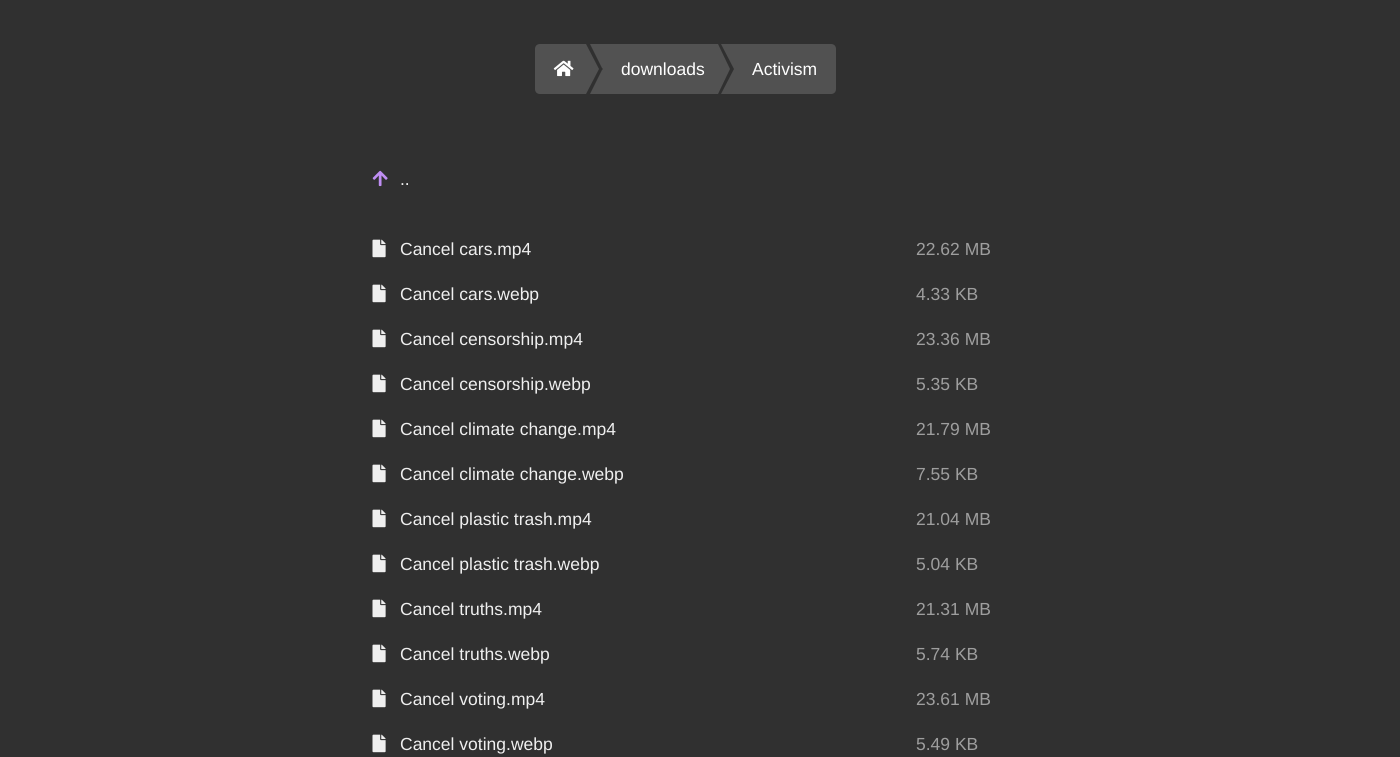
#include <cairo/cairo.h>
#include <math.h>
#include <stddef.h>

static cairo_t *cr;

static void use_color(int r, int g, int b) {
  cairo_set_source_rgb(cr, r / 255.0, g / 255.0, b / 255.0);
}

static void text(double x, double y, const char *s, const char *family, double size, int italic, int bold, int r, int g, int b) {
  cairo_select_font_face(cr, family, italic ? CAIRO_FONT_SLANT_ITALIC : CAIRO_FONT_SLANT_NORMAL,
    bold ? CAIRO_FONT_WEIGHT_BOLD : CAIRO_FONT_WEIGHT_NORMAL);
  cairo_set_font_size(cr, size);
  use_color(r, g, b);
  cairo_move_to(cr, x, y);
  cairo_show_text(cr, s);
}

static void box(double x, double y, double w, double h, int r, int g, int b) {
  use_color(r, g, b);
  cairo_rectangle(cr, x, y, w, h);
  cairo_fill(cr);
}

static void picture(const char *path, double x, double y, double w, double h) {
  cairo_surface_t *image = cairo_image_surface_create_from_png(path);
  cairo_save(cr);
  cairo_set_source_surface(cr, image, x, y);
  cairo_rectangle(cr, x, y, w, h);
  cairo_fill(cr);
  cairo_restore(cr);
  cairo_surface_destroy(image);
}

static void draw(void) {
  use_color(48, 48, 48);
  cairo_paint(cr);
  use_color(81, 81, 81);
  cairo_new_path(cr);
  cairo_move_to(cr, 540, 44);
  cairo_line_to(cr, 586, 44);
  cairo_line_to(cr, 586, 94);
  cairo_line_to(cr, 540, 94);
  cairo_curve_to(cr, 537, 94, 535, 92, 535, 89);
  cairo_line_to(cr, 535, 49);
  cairo_curve_to(cr, 535, 46, 537, 44, 540, 44);
  cairo_close_path(cr);
  cairo_fill(cr);
  picture("img_01.png", 553, 60, 21, 17);
  cairo_new_path(cr);
  cairo_move_to(cr, 586, 94);
  cairo_line_to(cr, 586, 44);
  cairo_line_to(cr, 599, 69);
  cairo_close_path(cr);
  cairo_fill(cr);
  box(615, 44, 103, 50, 82, 82, 82);
  cairo_new_path(cr);
  cairo_move_to(cr, 590, 44);
  cairo_line_to(cr, 615, 44);
  cairo_line_to(cr, 602.5, 69);
  cairo_close_path(cr);
  cairo_fill(cr);
  box(603, 44, 12, 50, 82, 82, 82);
  cairo_new_path(cr);
  cairo_move_to(cr, 615, 94);
  cairo_line_to(cr, 590, 94);
  cairo_line_to(cr, 602.5, 69);
  cairo_close_path(cr);
  cairo_fill(cr);
  cairo_new_path(cr);
  cairo_move_to(cr, 718, 94);
  cairo_line_to(cr, 718, 44);
  cairo_line_to(cr, 730, 69);
  cairo_close_path(cr);
  cairo_fill(cr);
  use_color(81, 81, 81);
  cairo_new_path(cr);
  cairo_move_to(cr, 746, 44);
  cairo_line_to(cr, 831, 44);
  cairo_curve_to(cr, 834, 44, 836, 46, 836, 49);
  cairo_line_to(cr, 836, 89);
  cairo_curve_to(cr, 836, 92, 834, 94, 831, 94);
  cairo_line_to(cr, 746, 94);
  cairo_close_path(cr);
  cairo_fill(cr);
  cairo_new_path(cr);
  cairo_move_to(cr, 721, 44);
  cairo_line_to(cr, 746, 44);
  cairo_line_to(cr, 734, 69);
  cairo_close_path(cr);
  cairo_fill(cr);
  box(734, 44, 12, 50, 81, 81, 81);
  cairo_new_path(cr);
  cairo_move_to(cr, 746, 94);
  cairo_line_to(cr, 721, 94);
  cairo_line_to(cr, 734, 69);
  cairo_close_path(cr);
  cairo_fill(cr);
  picture("img_02.png", 372, 170, 16, 17);
  picture("img_03.png", 372, 239, 14, 19);
  picture("img_03.png", 372, 284, 14, 19);
  picture("img_03.png", 372, 329, 14, 19);
  picture("img_03.png", 372, 374, 14, 19);
  picture("img_03.png", 372, 419, 14, 19);
  picture("img_03.png", 372, 464, 14, 19);
  picture("img_03.png", 372, 509, 14, 19);
  picture("img_03.png", 372, 554, 14, 19);
  picture("img_03.png", 372, 599, 14, 19);
  picture("img_03.png", 372, 644, 14, 19);
  picture("img_03.png", 372, 689, 14, 19);
  picture("img_03.png", 372, 734, 14, 19);
  text(621, 75, "downloads", "Liberation Sans", 17.5, 0, 0, 255, 255, 255);
  text(752, 75, "Activism", "Liberation Sans", 17.5, 0, 0, 255, 255, 255);
  text(400, 185, "..", "Liberation Sans", 17.5, 0, 0, 239, 239, 239);
  text(400, 255, "Cancel cars.mp4", "Liberation Sans", 17.5, 0, 0, 239, 239, 239);
  text(916, 255, "22.62 MB", "Liberation Sans", 17.5, 0, 0, 158, 158, 158);
  text(400, 300, "Cancel cars.webp", "Liberation Sans", 17.5, 0, 0, 239, 239, 239);
  text(916, 300, "4.33 KB", "Liberation Sans", 17.5, 0, 0, 158, 158, 158);
  text(400, 345, "Cancel censorship.mp4", "Liberation Sans", 17.5, 0, 0, 239, 239, 239);
  text(916, 345, "23.36 MB", "Liberation Sans", 17.5, 0, 0, 158, 158, 158);
  text(400, 390, "Cancel censorship.webp", "Liberation Sans", 17.5, 0, 0, 239, 239, 239);
  text(916, 390, "5.35 KB", "Liberation Sans", 17.5, 0, 0, 158, 158, 158);
  text(400, 435, "Cancel climate change.mp4", "Liberation Sans", 17.5, 0, 0, 239, 239, 239);
  text(916, 435, "21.79 MB", "Liberation Sans", 17.5, 0, 0, 158, 158, 158);
  text(400, 480, "Cancel climate change.webp", "Liberation Sans", 17.5, 0, 0, 239, 239, 239);
  text(916, 480, "7.55 KB", "Liberation Sans", 17.5, 0, 0, 158, 158, 158);
  text(400, 525, "Cancel plastic trash.mp4", "Liberation Sans", 17.5, 0, 0, 239, 239, 239);
  text(916, 525, "21.04 MB", "Liberation Sans", 17.5, 0, 0, 158, 158, 158);
  text(400, 570, "Cancel plastic trash.webp", "Liberation Sans", 17.5, 0, 0, 239, 239, 239);
  text(916, 570, "5.04 KB", "Liberation Sans", 17.5, 0, 0, 158, 158, 158);
  text(400, 615, "Cancel truths.mp4", "Liberation Sans", 17.5, 0, 0, 239, 239, 239);
  text(916, 615, "21.31 MB", "Liberation Sans", 17.5, 0, 0, 158, 158, 158);
  text(400, 660, "Cancel truths.webp", "Liberation Sans", 17.5, 0, 0, 239, 239, 239);
  text(916, 660, "5.74 KB", "Liberation Sans", 17.5, 0, 0, 158, 158, 158);
  text(400, 705, "Cancel voting.mp4", "Liberation Sans", 17.5, 0, 0, 239, 239, 239);
  text(916, 705, "23.61 MB", "Liberation Sans", 17.5, 0, 0, 158, 158, 158);
  text(400, 750, "Cancel voting.webp", "Liberation Sans", 17.5, 0, 0, 239, 239, 239);
  text(916, 750, "5.49 KB", "Liberation Sans", 17.5, 0, 0, 158, 158, 158);
}

int main(void) {
  cairo_surface_t *surface = cairo_image_surface_create(CAIRO_FORMAT_RGB24, 1400, 757);
  cr = cairo_create(surface);
  cairo_font_options_t *options = cairo_font_options_create();
  cairo_font_options_set_hint_metrics(options, CAIRO_HINT_METRICS_OFF);
  cairo_font_options_set_hint_style(options, CAIRO_HINT_STYLE_NONE);
  cairo_set_font_options(cr, options);
  cairo_set_miter_limit(cr, 4);
  draw();
  cairo_surface_write_to_png(surface, "out.png");
  cairo_font_options_destroy(options);
  cairo_destroy(cr);
  cairo_surface_destroy(surface);
  return 0;
}
